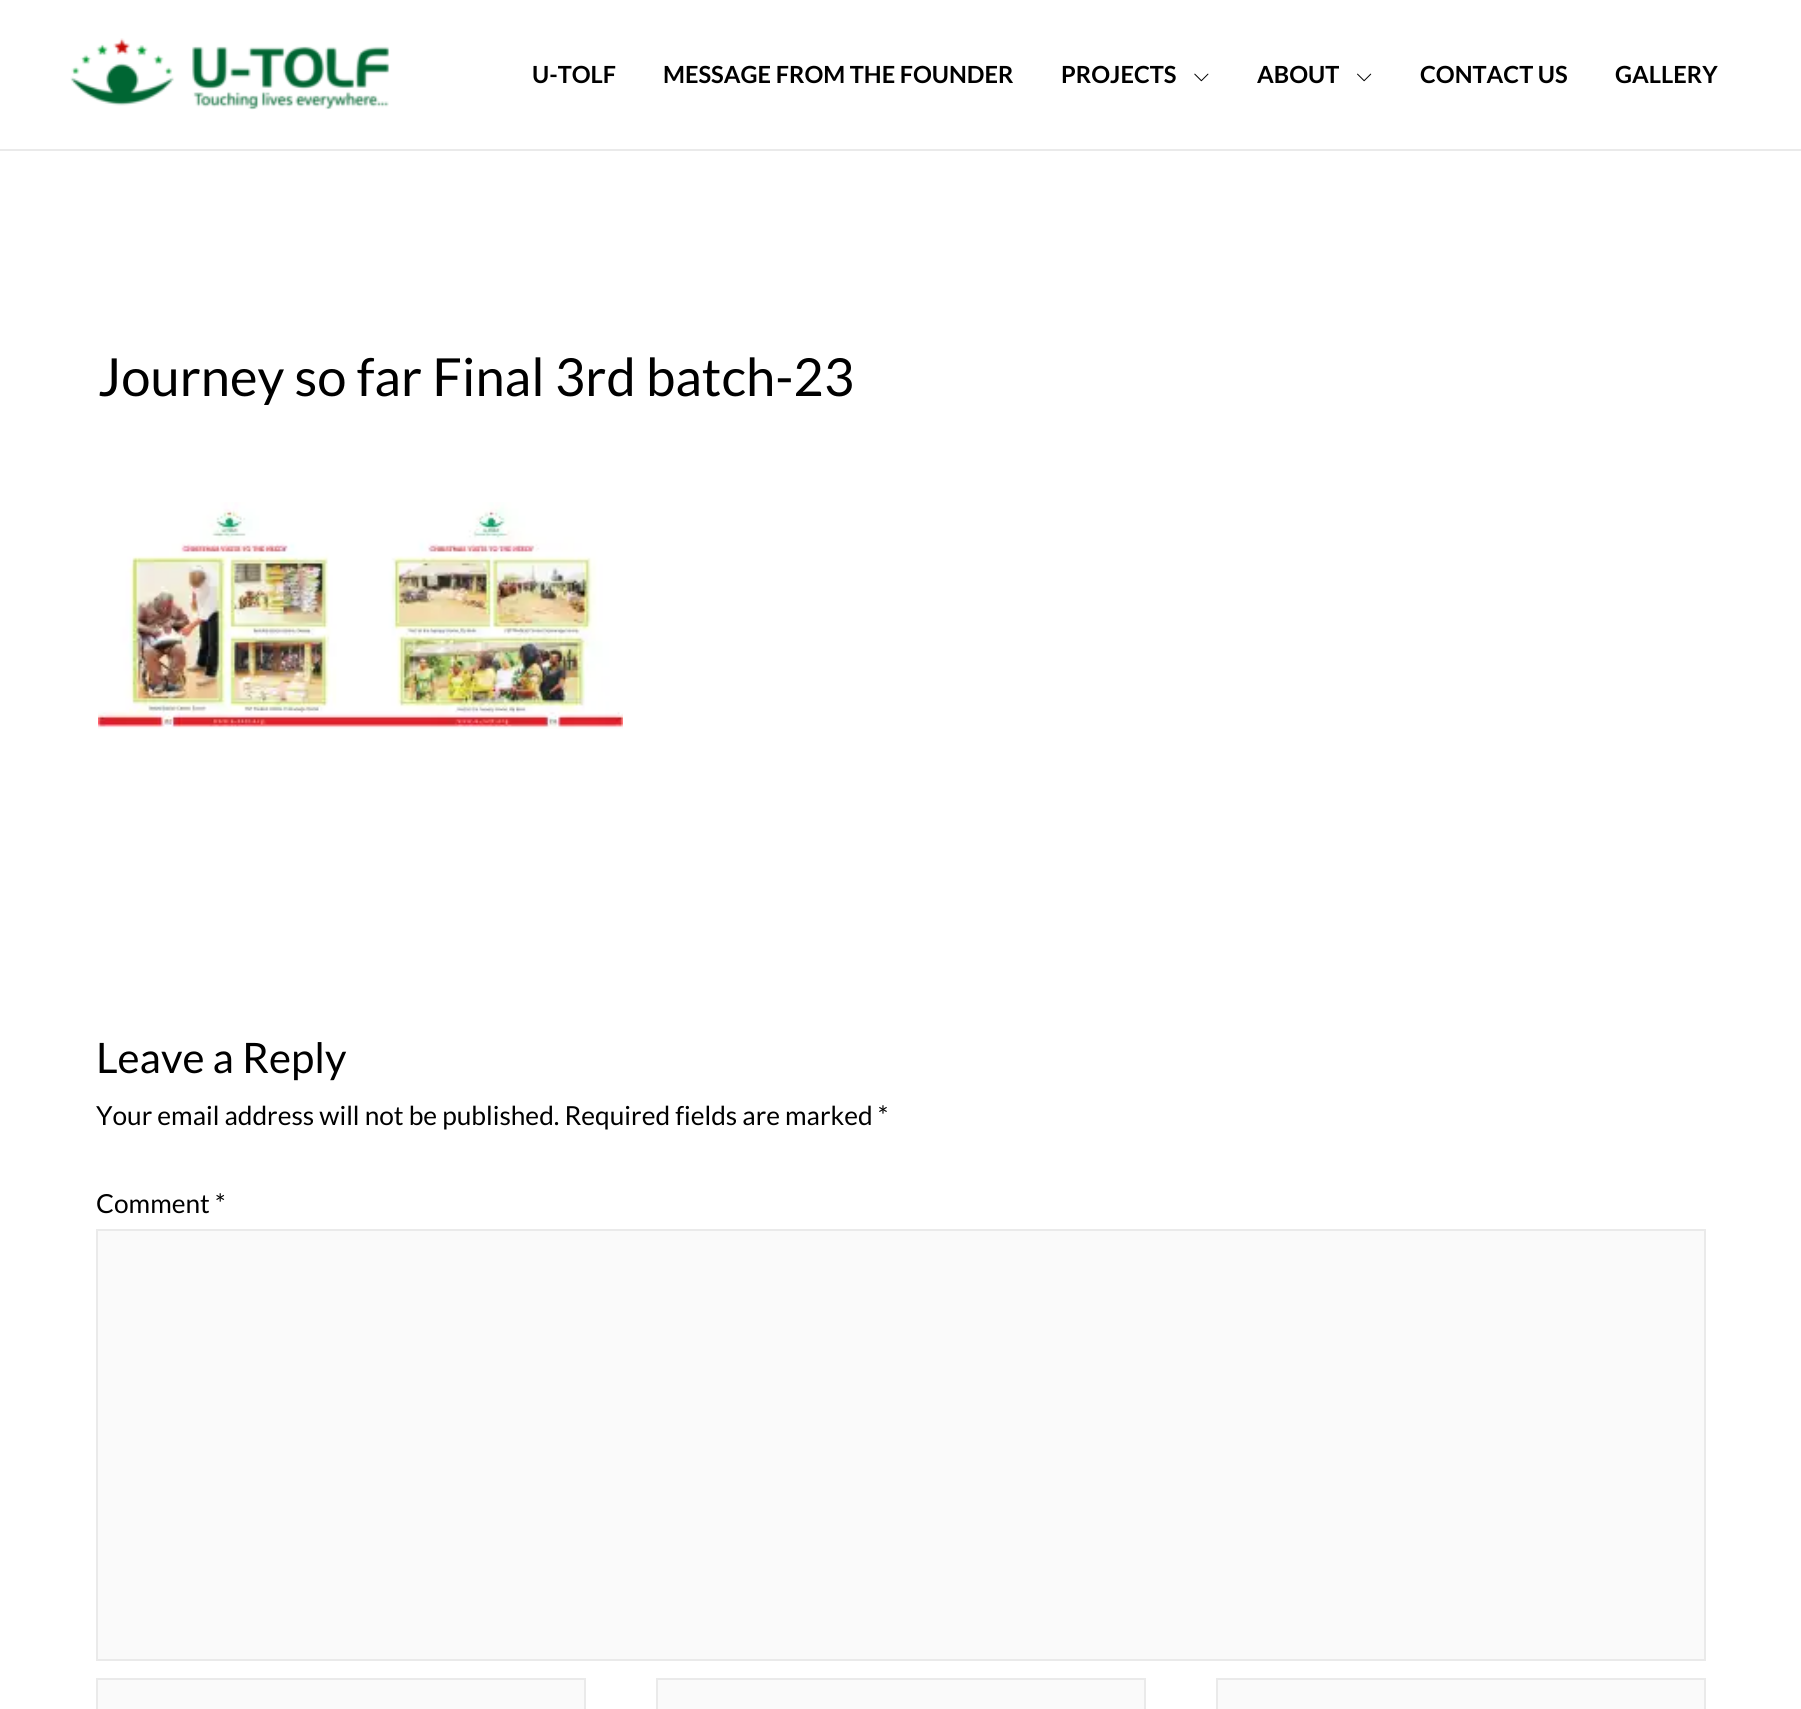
#include <cairo/cairo.h>
#include <math.h>
#include <stddef.h>

static cairo_t *cr;

static void use_color(int r, int g, int b) {
  cairo_set_source_rgb(cr, r / 255.0, g / 255.0, b / 255.0);
}

static void text(double x, double y, const char *s, const char *family, double size, int italic, int bold, int r, int g, int b) {
  cairo_select_font_face(cr, family, italic ? CAIRO_FONT_SLANT_ITALIC : CAIRO_FONT_SLANT_NORMAL,
    bold ? CAIRO_FONT_WEIGHT_BOLD : CAIRO_FONT_WEIGHT_NORMAL);
  cairo_set_font_size(cr, size);
  use_color(r, g, b);
  cairo_move_to(cr, x, y);
  cairo_show_text(cr, s);
}

static void box(double x, double y, double w, double h, int r, int g, int b) {
  use_color(r, g, b);
  cairo_rectangle(cr, x, y, w, h);
  cairo_fill(cr);
}

static void picture(const char *path, double x, double y, double w, double h) {
  cairo_surface_t *image = cairo_image_surface_create_from_png(path);
  cairo_save(cr);
  cairo_set_source_surface(cr, image, x, y);
  cairo_rectangle(cr, x, y, w, h);
  cairo_fill(cr);
  cairo_restore(cr);
  cairo_surface_destroy(image);
}

static void draw(void) {
  use_color(255, 255, 255);
  cairo_paint(cr);
  box(0, 149, 1801, 2, 234, 234, 234);
  picture("img_01.png", 70, 38, 320, 72);
  picture("img_02.png", 1194, 73, 15, 9);
  picture("img_03.png", 1357, 73, 15, 9);
  picture("img_04.png", 98, 502, 525, 227);
  use_color(250, 250, 250);
  cairo_rectangle(cr, 97, 1230, 1608, 430);
  cairo_fill_preserve(cr);
  use_color(234, 234, 234);
  cairo_stroke(cr);
  use_color(250, 250, 250);
  cairo_rectangle(cr, 97, 1679, 488, 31);
  cairo_fill_preserve(cr);
  use_color(234, 234, 234);
  cairo_stroke(cr);
  use_color(250, 250, 250);
  cairo_rectangle(cr, 657, 1679, 488, 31);
  cairo_fill_preserve(cr);
  use_color(234, 234, 234);
  cairo_stroke(cr);
  use_color(250, 250, 250);
  cairo_rectangle(cr, 1217, 1679, 488, 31);
  cairo_fill_preserve(cr);
  use_color(234, 234, 234);
  cairo_stroke(cr);
  text(532, 83, "U-TOLF", "Lato", 23.6, 0, 1, 0, 0, 0);
  text(663, 83, "MESSAGE FROM THE FOUNDER", "Lato", 23.6, 0, 1, 0, 0, 0);
  text(1061, 83, "PROJECTS", "Lato", 23.6, 0, 1, 0, 0, 0);
  text(1257, 83, "ABOUT", "Lato", 23.6, 0, 1, 0, 0, 0);
  text(1420, 83, "CONTACT US", "Lato", 23.6, 0, 1, 0, 0, 0);
  text(1615, 83, "GALLERY", "Lato", 23.6, 0, 1, 0, 0, 0);
  text(98, 396, "Journey so far Final 3rd batch-23", "Lato", 52.5, 0, 0, 0, 0, 0);
  text(96, 1073, "Leave a Reply", "Lato", 42, 0, 0, 0, 0, 0);
  text(96, 1125, "Your email address will not be published. Required fields are marked *", "Lato", 26.25, 0, 0, 0, 0, 0);
  text(96, 1213, "Comment *", "Lato", 26.25, 0, 0, 0, 0, 0);
}

int main(void) {
  cairo_surface_t *surface = cairo_image_surface_create(CAIRO_FORMAT_RGB24, 1801, 1709);
  cr = cairo_create(surface);
  cairo_font_options_t *options = cairo_font_options_create();
  cairo_font_options_set_hint_metrics(options, CAIRO_HINT_METRICS_OFF);
  cairo_font_options_set_hint_style(options, CAIRO_HINT_STYLE_NONE);
  cairo_set_font_options(cr, options);
  cairo_set_miter_limit(cr, 4);
  draw();
  cairo_surface_write_to_png(surface, "out.png");
  cairo_font_options_destroy(options);
  cairo_destroy(cr);
  cairo_surface_destroy(surface);
  return 0;
}
